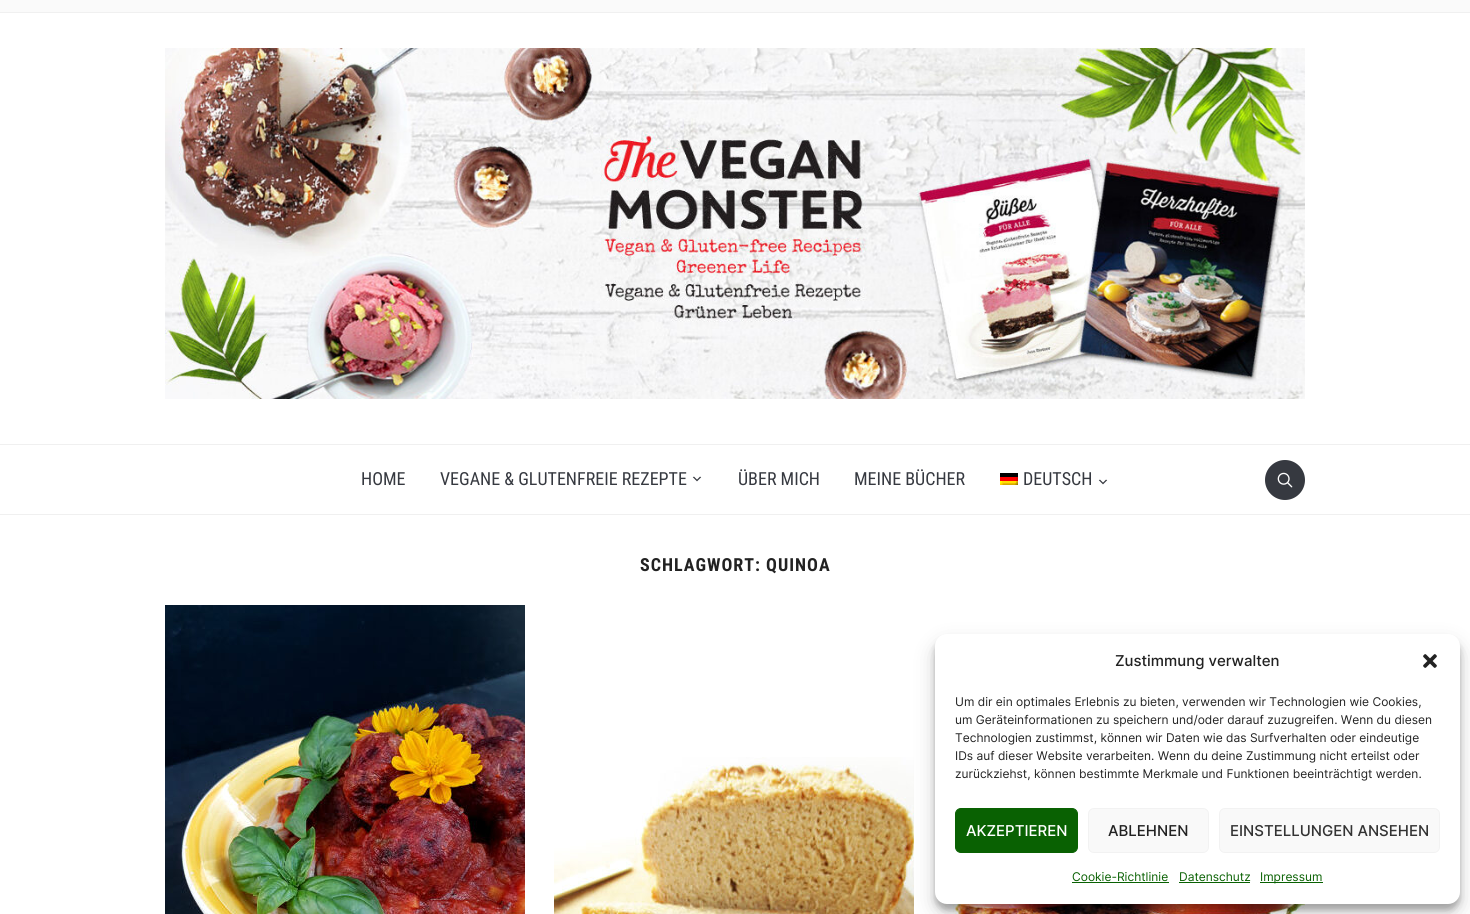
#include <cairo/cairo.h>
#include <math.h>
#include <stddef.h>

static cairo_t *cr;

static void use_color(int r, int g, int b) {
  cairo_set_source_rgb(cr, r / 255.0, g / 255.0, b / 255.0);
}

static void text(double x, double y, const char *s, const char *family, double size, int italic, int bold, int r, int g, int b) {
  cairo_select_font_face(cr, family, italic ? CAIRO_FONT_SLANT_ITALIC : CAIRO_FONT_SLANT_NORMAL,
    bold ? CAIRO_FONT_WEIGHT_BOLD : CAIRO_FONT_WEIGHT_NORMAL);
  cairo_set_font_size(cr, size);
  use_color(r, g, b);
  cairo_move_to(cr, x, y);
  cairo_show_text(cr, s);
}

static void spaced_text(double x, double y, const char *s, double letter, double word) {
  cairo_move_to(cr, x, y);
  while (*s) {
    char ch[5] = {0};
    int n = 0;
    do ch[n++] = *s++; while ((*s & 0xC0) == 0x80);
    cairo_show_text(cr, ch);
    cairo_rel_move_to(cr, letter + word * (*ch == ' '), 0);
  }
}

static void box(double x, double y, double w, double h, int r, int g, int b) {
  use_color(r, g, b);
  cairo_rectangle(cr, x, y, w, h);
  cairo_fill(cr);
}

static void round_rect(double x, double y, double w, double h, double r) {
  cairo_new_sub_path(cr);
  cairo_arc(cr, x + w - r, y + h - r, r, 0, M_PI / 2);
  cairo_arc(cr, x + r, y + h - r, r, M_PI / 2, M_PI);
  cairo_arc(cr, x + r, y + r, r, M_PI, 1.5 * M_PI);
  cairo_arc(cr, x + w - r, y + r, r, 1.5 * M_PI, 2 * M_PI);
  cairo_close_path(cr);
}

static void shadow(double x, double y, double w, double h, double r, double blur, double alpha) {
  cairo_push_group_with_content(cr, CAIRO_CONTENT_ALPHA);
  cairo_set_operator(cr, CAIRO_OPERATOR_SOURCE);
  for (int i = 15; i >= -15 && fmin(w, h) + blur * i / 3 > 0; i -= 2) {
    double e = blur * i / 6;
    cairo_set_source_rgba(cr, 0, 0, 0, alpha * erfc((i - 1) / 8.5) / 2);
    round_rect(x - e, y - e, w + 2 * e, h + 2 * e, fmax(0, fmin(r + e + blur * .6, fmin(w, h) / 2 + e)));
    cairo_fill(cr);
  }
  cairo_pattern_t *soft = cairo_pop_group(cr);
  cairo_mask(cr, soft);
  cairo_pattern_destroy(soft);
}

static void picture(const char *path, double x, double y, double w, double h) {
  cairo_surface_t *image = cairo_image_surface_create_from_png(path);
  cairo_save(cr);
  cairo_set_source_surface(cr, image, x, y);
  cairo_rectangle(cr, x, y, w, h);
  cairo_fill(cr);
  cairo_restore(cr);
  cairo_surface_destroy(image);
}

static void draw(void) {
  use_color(255, 255, 255);
  cairo_paint(cr);
  box(0, 0, 1470, 12, 250, 250, 250);
  box(0, 12, 1470, 1, 240, 240, 240);
  picture("img_01.png", 165, 48, 1140, 351);
  box(0, 444, 1470, 1, 240, 240, 240);
  box(0, 514, 1470, 1, 240, 240, 240);
  picture("img_02.png", 692, 476, 10, 6);
  picture("img_03.png", 1000, 473, 18, 12);
  picture("img_02.png", 1098, 479, 10, 6);
  use_color(54, 57, 64);
  cairo_arc(cr, 1285, 480, 20, 0, 2 * M_PI);
  cairo_fill(cr);
  picture("img_04.png", 1277, 472, 16, 16);
  picture("img_05.png", 165, 605, 360, 309);
  picture("img_06.png", 554, 757, 360, 157);
  picture("img_07.png", 945, 903, 360, 11);
  use_color(0, 0, 0);
  shadow(935, 640, 525, 270, 12, 3, 0.23);
  shadow(935, 644, 525, 270, 12, 10, 0.19);
  use_color(255, 255, 255);
  round_rect(935, 634, 525, 270, 12);
  cairo_fill(cr);
  picture("img_08.png", 1423, 654, 14, 14);
  use_color(9, 97, 2);
  round_rect(955.5, 808.5, 122, 44, 5.5);
  cairo_fill_preserve(cr);
  cairo_set_line_width(cr, 1);
  cairo_stroke(cr);
  use_color(249, 249, 249);
  round_rect(1088.5, 808.5, 120, 44, 5.5);
  cairo_fill_preserve(cr);
  use_color(242, 242, 242);
  cairo_stroke(cr);
  use_color(249, 249, 249);
  round_rect(1219.5, 808.5, 220, 44, 5.5);
  cairo_fill_preserve(cr);
  use_color(242, 242, 242);
  cairo_stroke(cr);
  box(1072, 882, 97, 1, 9, 97, 2);
  box(1179, 882, 71, 1, 9, 97, 2);
  box(1260, 882, 63, 1, 9, 97, 2);
  text(361, 485, "HOME", "Roboto Condensed", 18, 0, 0, 54, 57, 64);
  text(440, 485, "VEGANE & GLUTENFREIE REZEPTE", "Roboto Condensed", 18, 0, 0, 54, 57, 64);
  text(738, 485, "ÜBER MICH", "Roboto Condensed", 18, 0, 0, 54, 57, 64);
  text(854, 485, "MEINE BÜCHER", "Roboto Condensed", 18, 0, 0, 54, 57, 64);
  text(1023, 485, "DEUTSCH", "Roboto Condensed", 18, 0, 0, 54, 57, 64);
  cairo_select_font_face(cr, "Roboto Condensed", CAIRO_FONT_SLANT_NORMAL, CAIRO_FONT_WEIGHT_BOLD);
  use_color(34, 34, 34);
  spaced_text(640, 571, "SCHLAGWORT: QUINOA", 1, 0);
  text(1115, 666, "Zustimmung verwalten", "Inter Medium", 15, 0, 0, 34, 34, 34);
  text(955, 706, "Um dir ein optimales Erlebnis zu bieten, verwenden wir Technologien wie Cookies,", "Inter", 12, 0, 0, 34, 34, 34);
  text(955, 724, "um Geräteinformationen zu speichern und/oder darauf zuzugreifen. Wenn du diesen", "Inter", 12, 0, 0, 34, 34, 34);
  text(955, 742, "Technologien zustimmst, können wir Daten wie das Surfverhalten oder eindeutige", "Inter", 12, 0, 0, 34, 34, 34);
  text(955, 760, "IDs auf dieser Website verarbeiten. Wenn du deine Zustimmung nicht erteilst oder", "Inter", 12, 0, 0, 34, 34, 34);
  text(955, 778, "zurückziehst, können bestimmte Merkmale und Funktionen beeinträchtigt werden.", "Inter", 12, 0, 0, 34, 34, 34);
  text(966, 836, "AKZEPTIEREN", "Inter Medium", 15, 0, 0, 255, 255, 255);
  text(1108, 836, "ABLEHNEN", "Inter Medium", 15, 0, 0, 34, 34, 34);
  text(1230, 836, "EINSTELLUNGEN ANSEHEN", "Inter Medium", 15, 0, 0, 51, 51, 51);
  text(1072, 881, "Cookie-Richtlinie", "Inter", 12, 0, 0, 9, 97, 2);
  text(1179, 881, "Datenschutz", "Inter", 12, 0, 0, 9, 97, 2);
  text(1260, 881, "Impressum", "Inter", 12, 0, 0, 9, 97, 2);
}

int main(void) {
  cairo_surface_t *surface = cairo_image_surface_create(CAIRO_FORMAT_RGB24, 1470, 914);
  cr = cairo_create(surface);
  cairo_font_options_t *options = cairo_font_options_create();
  cairo_font_options_set_hint_metrics(options, CAIRO_HINT_METRICS_OFF);
  cairo_font_options_set_hint_style(options, CAIRO_HINT_STYLE_NONE);
  cairo_set_font_options(cr, options);
  cairo_set_miter_limit(cr, 4);
  draw();
  cairo_surface_write_to_png(surface, "out.png");
  cairo_font_options_destroy(options);
  cairo_destroy(cr);
  cairo_surface_destroy(surface);
  return 0;
}
